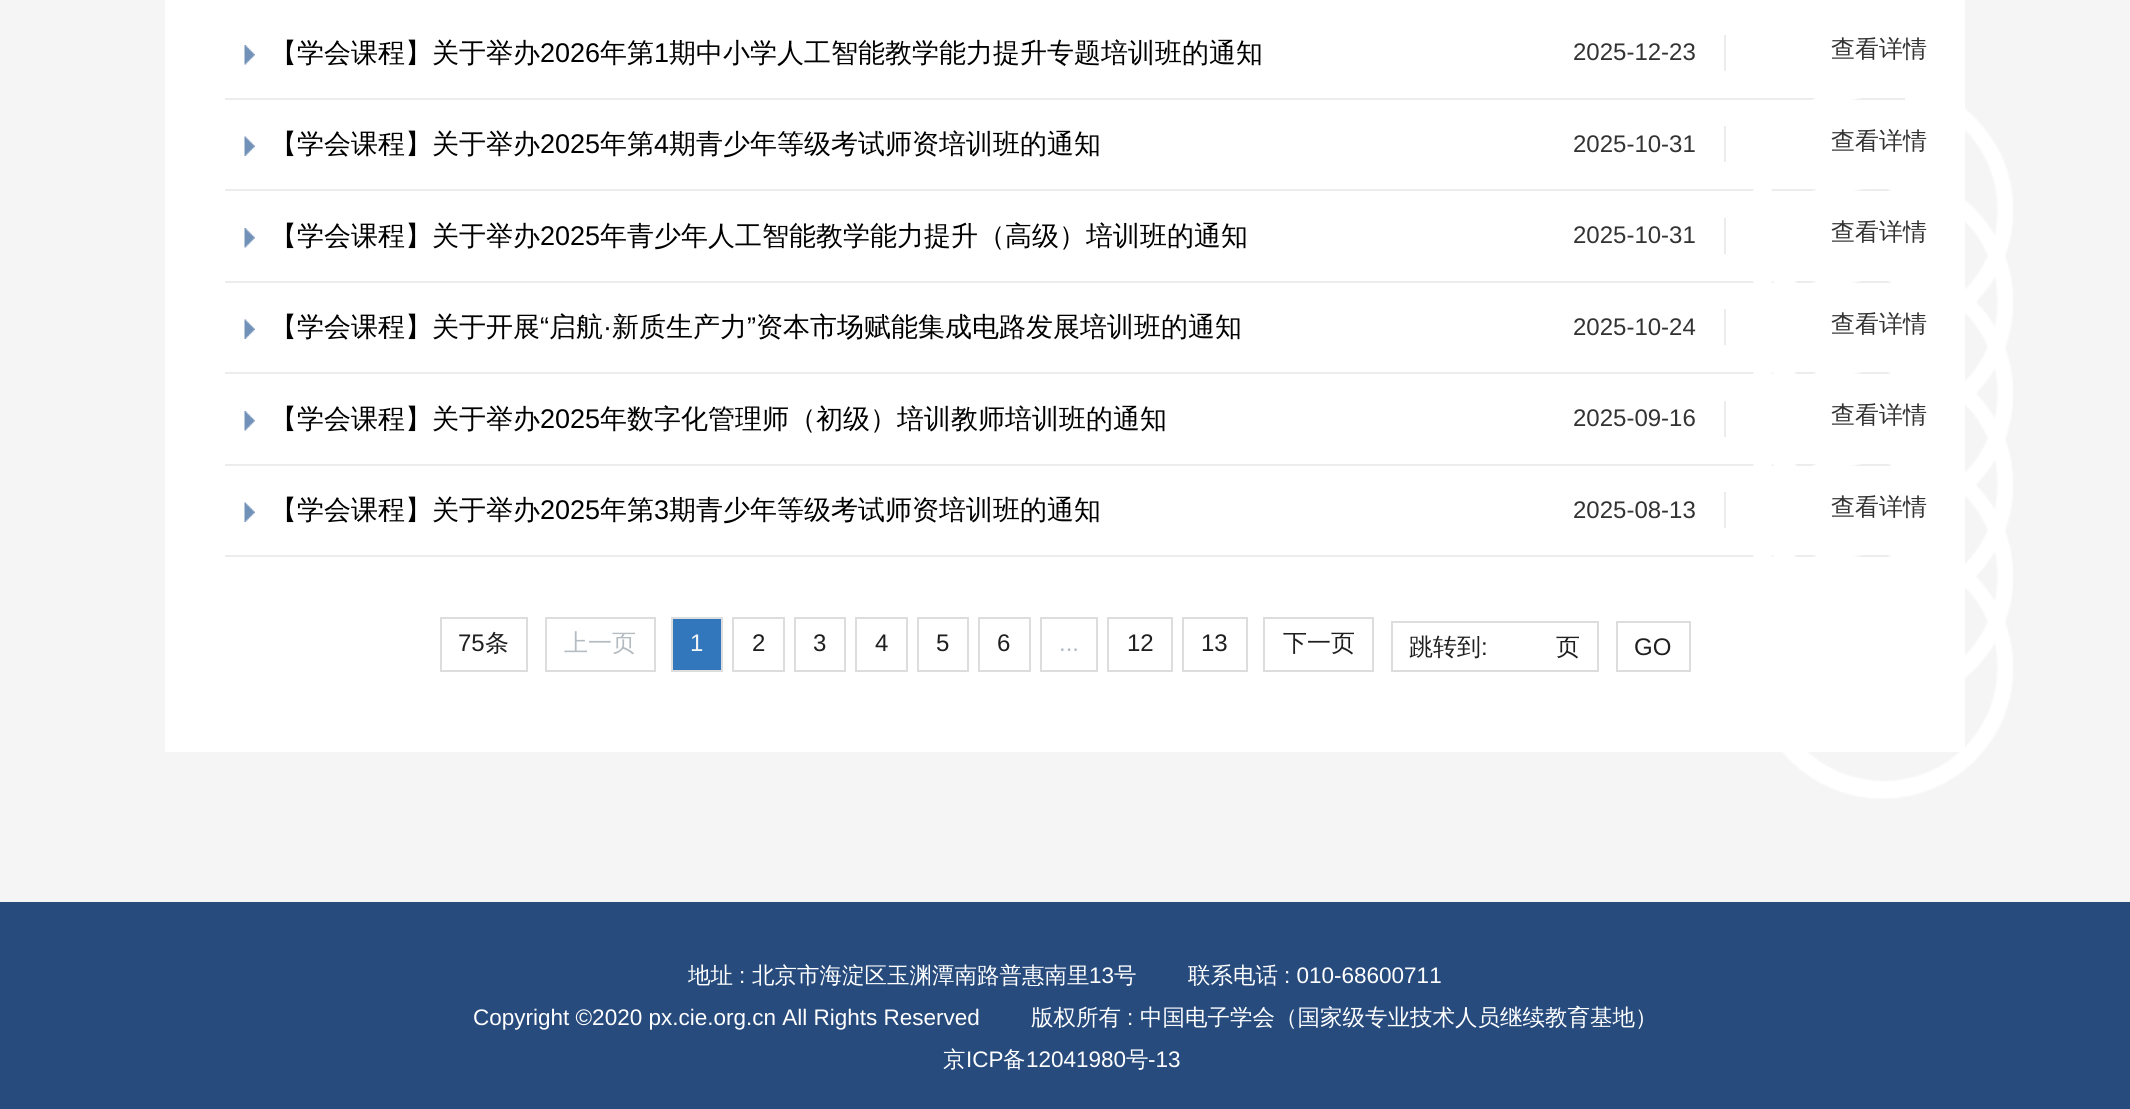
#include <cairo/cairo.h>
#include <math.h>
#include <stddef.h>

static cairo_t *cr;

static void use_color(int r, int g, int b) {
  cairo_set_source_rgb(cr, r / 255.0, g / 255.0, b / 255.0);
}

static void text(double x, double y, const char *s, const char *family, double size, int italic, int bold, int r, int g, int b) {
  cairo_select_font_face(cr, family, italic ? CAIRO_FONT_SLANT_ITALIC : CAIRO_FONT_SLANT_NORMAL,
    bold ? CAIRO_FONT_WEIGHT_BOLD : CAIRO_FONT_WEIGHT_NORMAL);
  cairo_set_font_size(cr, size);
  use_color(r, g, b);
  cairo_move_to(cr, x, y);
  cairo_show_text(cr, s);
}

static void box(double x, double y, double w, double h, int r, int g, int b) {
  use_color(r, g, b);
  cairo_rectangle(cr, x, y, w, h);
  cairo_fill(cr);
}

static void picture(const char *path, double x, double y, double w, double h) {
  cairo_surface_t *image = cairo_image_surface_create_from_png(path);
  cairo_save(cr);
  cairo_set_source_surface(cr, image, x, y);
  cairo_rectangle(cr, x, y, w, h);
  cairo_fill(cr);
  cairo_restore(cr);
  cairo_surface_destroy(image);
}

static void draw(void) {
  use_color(245, 245, 245);
  cairo_paint(cr);
  box(165, 0, 1800, 752, 255, 255, 255);
  box(225, 98, 1680, 2, 236, 236, 236);
  picture("img_01.png", 244, 45, 11, 20);
  box(1724, 35, 2, 36, 236, 236, 236);
  box(225, 189, 1667, 2, 236, 236, 236);
  box(225, 281, 1667, 2, 236, 236, 236);
  picture("img_02.png", 1753, 98, 260, 214);
  picture("img_03.png", 244, 136, 11, 20);
  box(1724, 126, 2, 36, 236, 236, 236);
  box(225, 372, 1667, 2, 236, 236, 236);
  picture("img_04.png", 1753, 189, 260, 215);
  picture("img_01.png", 244, 228, 11, 20);
  box(1724, 218, 2, 36, 236, 236, 236);
  box(225, 464, 1667, 2, 236, 236, 236);
  picture("img_05.png", 1753, 281, 260, 214);
  picture("img_03.png", 244, 319, 11, 20);
  box(1724, 309, 2, 36, 236, 236, 236);
  box(225, 555, 1667, 2, 236, 236, 236);
  picture("img_06.png", 1753, 372, 260, 215);
  picture("img_01.png", 244, 411, 11, 20);
  box(1724, 401, 2, 36, 236, 236, 236);
  picture("img_07.png", 1753, 464, 260, 214);
  picture("img_03.png", 244, 502, 11, 20);
  box(1724, 492, 2, 36, 236, 236, 236);
  picture("img_08.png", 1782, 555, 231, 244);
  cairo_rectangle(cr, 441, 618, 86, 53);
  use_color(221, 221, 221);
  cairo_stroke(cr);
  cairo_rectangle(cr, 546, 618, 109, 53);
  cairo_stroke(cr);
  use_color(50, 119, 188);
  cairo_rectangle(cr, 672, 618, 50, 53);
  cairo_fill_preserve(cr);
  use_color(221, 221, 221);
  cairo_stroke(cr);
  cairo_rectangle(cr, 733, 618, 51, 53);
  cairo_stroke(cr);
  cairo_rectangle(cr, 795, 618, 50, 53);
  cairo_stroke(cr);
  cairo_rectangle(cr, 856, 618, 51, 53);
  cairo_stroke(cr);
  cairo_rectangle(cr, 918, 618, 50, 53);
  cairo_stroke(cr);
  cairo_rectangle(cr, 979, 618, 51, 53);
  cairo_stroke(cr);
  cairo_rectangle(cr, 1041, 618, 56, 53);
  cairo_stroke(cr);
  cairo_rectangle(cr, 1108, 618, 64, 53);
  cairo_stroke(cr);
  cairo_rectangle(cr, 1183, 618, 64, 53);
  cairo_stroke(cr);
  cairo_rectangle(cr, 1264, 618, 109, 53);
  cairo_stroke(cr);
  cairo_rectangle(cr, 1392, 622, 206, 49);
  cairo_stroke(cr);
  cairo_rectangle(cr, 1617, 622, 73, 49);
  cairo_stroke(cr);
  box(0, 902, 2130, 207, 39, 75, 125);
  text(270, 62, "【学会课程】关于举办", "WenQuanYi Zen Hei Medium", 27, 0, 0, 0, 0, 0);
  text(540, 62, "2026", "Liberation Sans", 27, 0, 0, 0, 0, 0);
  text(600, 62, "年第", "WenQuanYi Zen Hei Medium", 27, 0, 0, 0, 0, 0);
  text(654, 62, "1", "Liberation Sans", 27, 0, 0, 0, 0, 0);
  text(669, 62, "期中小学人工智能教学能力提升专题培训班的通知", "WenQuanYi Zen Hei Medium", 27, 0, 0, 0, 0, 0);
  text(1573, 60, "2025-12-23", "Liberation Sans", 24, 0, 0, 51, 51, 51);
  text(1831, 57, "查看详情", "WenQuanYi Zen Hei Medium", 24, 0, 0, 51, 51, 51);
  text(270, 153, "【学会课程】关于举办", "WenQuanYi Zen Hei Medium", 27, 0, 0, 0, 0, 0);
  text(540, 153, "2025", "Liberation Sans", 27, 0, 0, 0, 0, 0);
  text(600, 153, "年第", "WenQuanYi Zen Hei Medium", 27, 0, 0, 0, 0, 0);
  text(654, 153, "4", "Liberation Sans", 27, 0, 0, 0, 0, 0);
  text(669, 153, "期青少年等级考试师资培训班的通知", "WenQuanYi Zen Hei Medium", 27, 0, 0, 0, 0, 0);
  text(1573, 152, "2025-10-31", "Liberation Sans", 24, 0, 0, 51, 51, 51);
  text(1831, 149, "查看详情", "WenQuanYi Zen Hei Medium", 24, 0, 0, 51, 51, 51);
  text(270, 245, "【学会课程】关于举办", "WenQuanYi Zen Hei Medium", 27, 0, 0, 0, 0, 0);
  text(540, 245, "2025", "Liberation Sans", 27, 0, 0, 0, 0, 0);
  text(600, 245, "年青少年人工智能教学能力提升（高级）培训班的通知", "WenQuanYi Zen Hei Medium", 27, 0, 0, 0, 0, 0);
  text(1573, 243, "2025-10-31", "Liberation Sans", 24, 0, 0, 51, 51, 51);
  text(1831, 240, "查看详情", "WenQuanYi Zen Hei Medium", 24, 0, 0, 51, 51, 51);
  text(270, 336, "【学会课程】关于开展", "WenQuanYi Zen Hei Medium", 27, 0, 0, 0, 0, 0);
  text(540, 336, "“", "Liberation Sans", 27, 0, 0, 0, 0, 0);
  text(549, 336, "启航", "WenQuanYi Zen Hei Medium", 27, 0, 0, 0, 0, 0);
  text(612, 336, "新质生产力", "WenQuanYi Zen Hei Medium", 27, 0, 0, 0, 0, 0);
  text(747, 336, "”", "Liberation Sans", 27, 0, 0, 0, 0, 0);
  text(756, 336, "资本市场赋能集成电路发展培训班的通知", "WenQuanYi Zen Hei Medium", 27, 0, 0, 0, 0, 0);
  text(603, 336, "·", "Liberation Sans", 27, 0, 0, 0, 0, 0);
  text(1573, 335, "2025-10-24", "Liberation Sans", 24, 0, 0, 51, 51, 51);
  text(1831, 332, "查看详情", "WenQuanYi Zen Hei Medium", 24, 0, 0, 51, 51, 51);
  text(270, 428, "【学会课程】关于举办", "WenQuanYi Zen Hei Medium", 27, 0, 0, 0, 0, 0);
  text(540, 428, "2025", "Liberation Sans", 27, 0, 0, 0, 0, 0);
  text(600, 428, "年数字化管理师（初级）培训教师培训班的通知", "WenQuanYi Zen Hei Medium", 27, 0, 0, 0, 0, 0);
  text(1573, 426, "2025-09-16", "Liberation Sans", 24, 0, 0, 51, 51, 51);
  text(1831, 423, "查看详情", "WenQuanYi Zen Hei Medium", 24, 0, 0, 51, 51, 51);
  text(270, 519, "【学会课程】关于举办", "WenQuanYi Zen Hei Medium", 27, 0, 0, 0, 0, 0);
  text(540, 519, "2025", "Liberation Sans", 27, 0, 0, 0, 0, 0);
  text(600, 519, "年第", "WenQuanYi Zen Hei Medium", 27, 0, 0, 0, 0, 0);
  text(654, 519, "3", "Liberation Sans", 27, 0, 0, 0, 0, 0);
  text(669, 519, "期青少年等级考试师资培训班的通知", "WenQuanYi Zen Hei Medium", 27, 0, 0, 0, 0, 0);
  text(1573, 518, "2025-08-13", "Liberation Sans", 24, 0, 0, 51, 51, 51);
  text(1831, 515, "查看详情", "WenQuanYi Zen Hei Medium", 24, 0, 0, 51, 51, 51);
  text(458, 651, "75", "Liberation Sans", 24, 0, 0, 31, 31, 31);
  text(485, 651, "条", "WenQuanYi Zen Hei Medium", 24, 0, 0, 31, 31, 31);
  text(564, 651, "上一页", "WenQuanYi Zen Hei Medium", 24, 0, 0, 180, 188, 194);
  text(690, 651, "1", "Liberation Sans", 24, 0, 0, 242, 244, 246);
  text(752, 651, "2", "Liberation Sans", 24, 0, 0, 31, 31, 31);
  text(813, 651, "3", "Liberation Sans", 24, 0, 0, 31, 31, 31);
  text(875, 651, "4", "Liberation Sans", 24, 0, 0, 31, 31, 31);
  text(936, 651, "5", "Liberation Sans", 24, 0, 0, 31, 31, 31);
  text(997, 651, "6", "Liberation Sans", 24, 0, 0, 31, 31, 31);
  text(1059, 651, "...", "Liberation Sans", 24, 0, 0, 180, 188, 194);
  text(1127, 651, "12", "Liberation Sans", 24, 0, 0, 31, 31, 31);
  text(1201, 651, "13", "Liberation Sans", 24, 0, 0, 31, 31, 31);
  text(1283, 651, "下一页", "WenQuanYi Zen Hei Medium", 24, 0, 0, 31, 31, 31);
  text(1409, 655, "跳转到", "WenQuanYi Zen Hei Medium", 24, 0, 0, 31, 31, 31);
  text(1481, 655, ":", "Liberation Sans", 24, 0, 0, 31, 31, 31);
  text(1556, 655, "页", "WenQuanYi Zen Hei Medium", 24, 0, 0, 31, 31, 31);
  text(1634, 655, "GO", "Liberation Sans", 24, 0, 0, 31, 31, 31);
  text(688, 983, "地址", "WenQuanYi Zen Hei Medium", 22.5, 0, 0, 255, 255, 255);
  text(739, 983, ":", "Liberation Sans", 22.5, 0, 0, 255, 255, 255);
  text(752, 983, "北京市海淀区玉渊潭南路普惠南里", "WenQuanYi Zen Hei Medium", 22.5, 0, 0, 255, 255, 255);
  text(1089, 983, "13", "Liberation Sans", 22.5, 0, 0, 255, 255, 255);
  text(1114, 983, "号", "WenQuanYi Zen Hei Medium", 22.5, 0, 0, 255, 255, 255);
  text(1188, 983, "联系电话", "WenQuanYi Zen Hei Medium", 22.5, 0, 0, 255, 255, 255);
  text(1284, 983, ": 010-68600711", "Liberation Sans", 22.5, 0, 0, 255, 255, 255);
  text(473, 1025, "Copyright ©2020 px.cie.org.cn All Rights Reserved", "Liberation Sans", 22.5, 0, 0, 255, 255, 255);
  text(1031, 1025, "版权所有", "WenQuanYi Zen Hei Medium", 22.5, 0, 0, 255, 255, 255);
  text(1127, 1025, ":", "Liberation Sans", 22.5, 0, 0, 255, 255, 255);
  text(1140, 1025, "中国电子学会（国家级专业技术人员继续教育基地）", "WenQuanYi Zen Hei Medium", 22.5, 0, 0, 255, 255, 255);
  text(943, 1067, "京", "WenQuanYi Zen Hei Medium", 22.5, 0, 0, 255, 255, 255);
  text(966, 1067, "ICP", "Liberation Sans", 22.5, 0, 0, 255, 255, 255);
  text(1003, 1067, "备", "WenQuanYi Zen Hei Medium", 22.5, 0, 0, 255, 255, 255);
  text(1026, 1067, "12041980", "Liberation Sans", 22.5, 0, 0, 255, 255, 255);
  text(1126, 1067, "号", "WenQuanYi Zen Hei Medium", 22.5, 0, 0, 255, 255, 255);
  text(1148, 1067, "-13", "Liberation Sans", 22.5, 0, 0, 255, 255, 255);
}

int main(void) {
  cairo_surface_t *surface = cairo_image_surface_create(CAIRO_FORMAT_RGB24, 2130, 1109);
  cr = cairo_create(surface);
  cairo_font_options_t *options = cairo_font_options_create();
  cairo_font_options_set_hint_metrics(options, CAIRO_HINT_METRICS_OFF);
  cairo_font_options_set_hint_style(options, CAIRO_HINT_STYLE_NONE);
  cairo_set_font_options(cr, options);
  cairo_set_miter_limit(cr, 4);
  draw();
  cairo_surface_write_to_png(surface, "out.png");
  cairo_font_options_destroy(options);
  cairo_destroy(cr);
  cairo_surface_destroy(surface);
  return 0;
}
